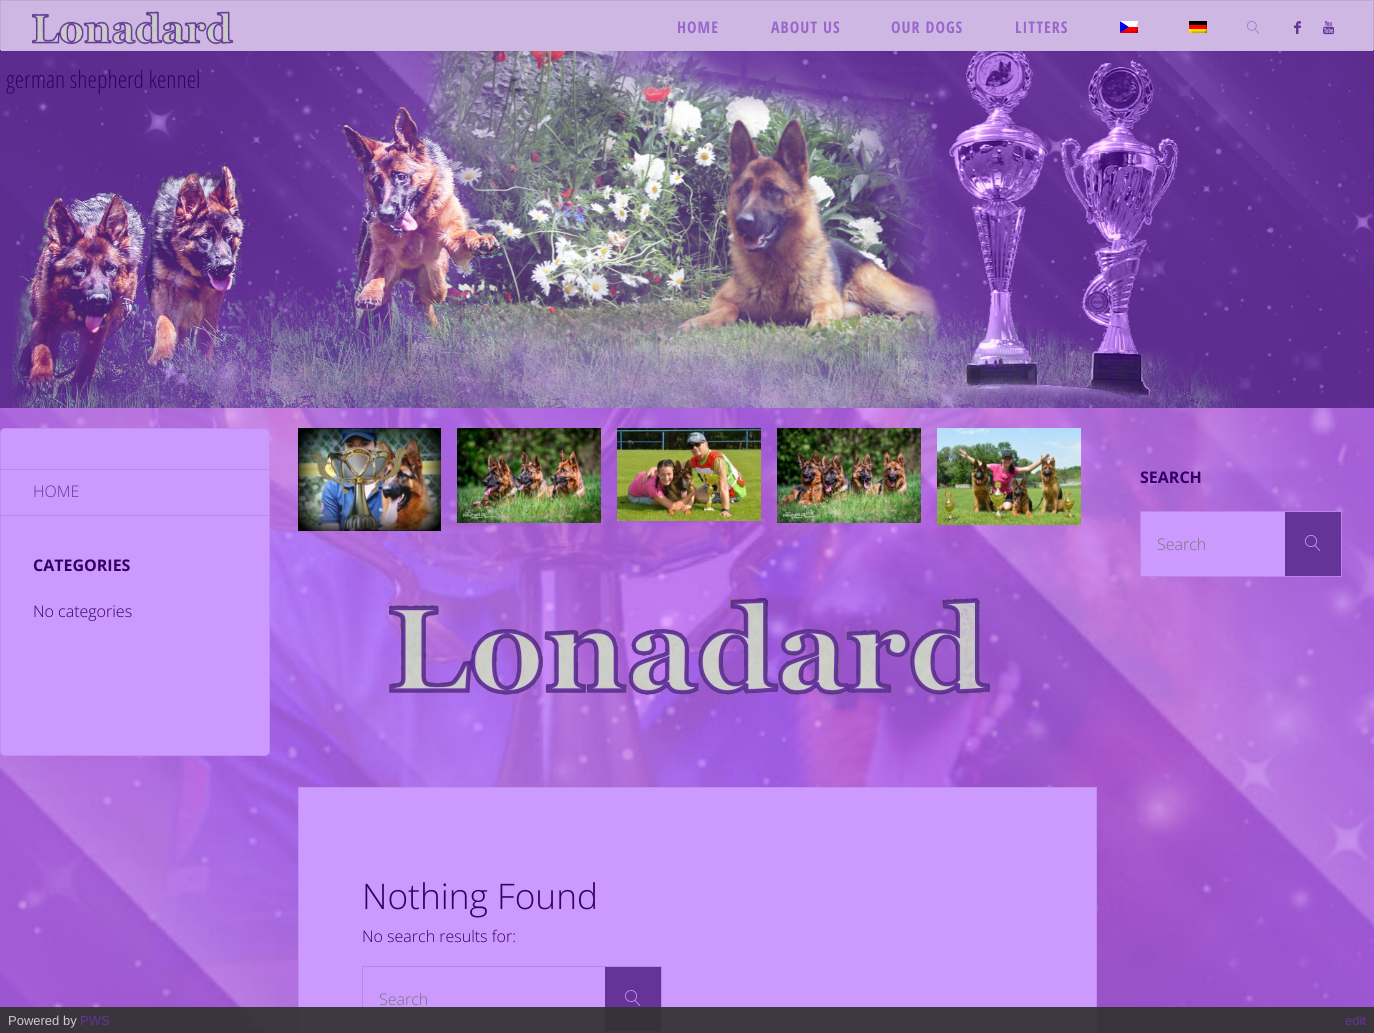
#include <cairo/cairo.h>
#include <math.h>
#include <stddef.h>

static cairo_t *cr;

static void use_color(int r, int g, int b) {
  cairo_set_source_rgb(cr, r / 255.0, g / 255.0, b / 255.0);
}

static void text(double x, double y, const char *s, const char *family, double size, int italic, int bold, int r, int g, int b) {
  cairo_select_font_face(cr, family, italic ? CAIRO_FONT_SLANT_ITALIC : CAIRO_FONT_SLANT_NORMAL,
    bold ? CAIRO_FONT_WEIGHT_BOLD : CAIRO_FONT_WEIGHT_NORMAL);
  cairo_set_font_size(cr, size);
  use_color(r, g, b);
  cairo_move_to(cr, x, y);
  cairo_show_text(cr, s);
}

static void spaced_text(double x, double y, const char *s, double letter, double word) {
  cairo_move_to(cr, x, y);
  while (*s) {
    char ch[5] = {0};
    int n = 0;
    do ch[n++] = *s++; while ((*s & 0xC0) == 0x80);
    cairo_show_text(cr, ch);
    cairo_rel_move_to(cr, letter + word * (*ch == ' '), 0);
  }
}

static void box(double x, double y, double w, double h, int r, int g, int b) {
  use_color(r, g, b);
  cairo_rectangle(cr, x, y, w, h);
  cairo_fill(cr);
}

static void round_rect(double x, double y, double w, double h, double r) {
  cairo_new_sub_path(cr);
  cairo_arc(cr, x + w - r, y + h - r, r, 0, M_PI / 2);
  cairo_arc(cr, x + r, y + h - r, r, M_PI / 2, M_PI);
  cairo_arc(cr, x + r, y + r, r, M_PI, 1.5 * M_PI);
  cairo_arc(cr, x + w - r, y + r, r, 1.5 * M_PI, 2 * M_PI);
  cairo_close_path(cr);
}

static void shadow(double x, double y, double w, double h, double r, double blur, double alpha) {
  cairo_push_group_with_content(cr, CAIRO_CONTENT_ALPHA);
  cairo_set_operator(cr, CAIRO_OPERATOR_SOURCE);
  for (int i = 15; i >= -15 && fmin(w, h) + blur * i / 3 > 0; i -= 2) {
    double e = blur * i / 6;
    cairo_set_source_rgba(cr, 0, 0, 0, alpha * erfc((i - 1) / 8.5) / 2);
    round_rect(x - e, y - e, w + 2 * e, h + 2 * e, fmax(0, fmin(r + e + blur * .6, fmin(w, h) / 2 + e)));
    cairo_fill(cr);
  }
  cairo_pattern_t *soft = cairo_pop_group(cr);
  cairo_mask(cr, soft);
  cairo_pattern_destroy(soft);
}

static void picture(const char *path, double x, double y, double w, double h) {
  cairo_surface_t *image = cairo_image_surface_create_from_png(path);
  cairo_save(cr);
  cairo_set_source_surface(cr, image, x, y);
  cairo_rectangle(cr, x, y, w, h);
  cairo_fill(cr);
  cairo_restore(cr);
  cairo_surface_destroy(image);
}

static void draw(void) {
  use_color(255, 255, 255);
  cairo_paint(cr);
  picture("img_01.png", 0, 408, 1374, 625);
  picture("img_08.png", 0, 50, 1374, 358);
  use_color(0, 0, 0);
  shadow(0, 0, 1374, 50, 0, 1.5, 0.2);
  cairo_rectangle(cr, 0.5, 0.5, 1373, 49);
  use_color(192, 170, 210);
  cairo_set_line_width(cr, 1);
  cairo_stroke(cr);
  box(1, 1, 1372, 50, 206, 183, 226);
  picture("img_02.png", 31, 11, 203, 34);
  picture("img_03.png", 1120, 21, 18, 12);
  picture("img_04.png", 1189, 21, 18, 12);
  picture("img_05.png", 1247, 21, 13, 13);
  picture("img_06.png", 1294, 21, 7, 13);
  picture("img_07.png", 1323, 20, 12, 15);
  use_color(204, 153, 255);
  round_rect(0, 428, 270, 328, 5);
  cairo_fill(cr);
  round_rect(0.5, 428.5, 269, 327, 4.5);
  cairo_set_source_rgba(cr, 0, 0, 0, 0.07);
  cairo_stroke(cr);
  box(1, 515, 268, 1, 187, 136, 238);
  box(1, 469, 268, 1, 187, 136, 238);
  box(1141, 512, 144, 64, 204, 153, 255);
  cairo_rectangle(cr, 1140.5, 511.5, 201, 65);
  use_color(184, 133, 235);
  cairo_stroke(cr);
  box(1285, 512, 56, 64, 102, 51, 153);
  picture("img_09.png", 1305, 535, 16, 16);
  picture("img_10.png", 298, 428, 143, 103);
  picture("img_11.png", 457, 428, 144, 95);
  picture("img_12.png", 617, 428, 144, 93);
  picture("img_13.png", 777, 428, 144, 95);
  picture("img_14.png", 937, 428, 144, 97);
  picture("img_15.png", 388, 598, 602, 97);
  use_color(204, 153, 255);
  cairo_rectangle(cr, 298.5, 787.5, 798, 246);
  cairo_fill_preserve(cr);
  use_color(190, 142, 237);
  cairo_stroke(cr);
  cairo_rectangle(cr, 362.5, 966.5, 299, 65);
  use_color(184, 133, 235);
  cairo_stroke(cr);
  box(605, 967, 56, 64, 102, 51, 153);
  picture("img_09.png", 625, 990, 16, 16);
  cairo_set_source_rgba(cr, 0.2, 0.2, 0.2, 0.93);
  cairo_rectangle(cr, 0, 1007, 1374, 26);
  cairo_fill(cr);
  cairo_select_font_face(cr, "Open Sans Condensed", CAIRO_FONT_SLANT_NORMAL, CAIRO_FONT_WEIGHT_BOLD);
  cairo_set_font_size(cr, 16);
  use_color(153, 102, 204);
  spaced_text(677, 33, "HOME", 1, 0);
  spaced_text(771, 33, "ABOUT US", 1, 0);
  spaced_text(891, 33, "OUR DOGS", 1, 0);
  spaced_text(1015, 33, "LITTERS", 1, 0);
  text(6, 88, "german shepherd kennel", "Open Sans Condensed Light", 24, 0, 0, 51, 0, 102);
  text(33, 497, "HOME", "Open Sans Light", 16, 0, 0, 102, 51, 153);
  text(33, 571, "CATEGORIES", "Open Sans", 16, 0, 1, 51, 0, 102);
  text(33, 617, "No categories", "Open Sans Light", 16, 0, 0, 51, 0, 102);
  text(1140, 483, "SEARCH", "Open Sans", 16, 0, 1, 51, 0, 102);
  text(1157, 550, "Search", "Open Sans Light", 16, 0, 0, 117, 117, 117);
  text(362, 909, "Nothing Found", "Open Sans Light", 35.25, 0, 0, 51, 0, 102);
  text(362, 942, "No search results for:", "Open Sans Light", 16, 0, 0, 51, 0, 102);
  text(379, 1005, "Search", "Open Sans Light", 16, 0, 0, 117, 117, 117);
  text(8, 1025, "Powered by", "Liberation Sans", 13, 0, 0, 204, 204, 204);
  text(80, 1025, "PWS", "Liberation Sans", 13, 0, 0, 102, 51, 153);
  text(1345, 1025, "edit", "Liberation Sans", 13, 0, 0, 102, 51, 153);
}

int main(void) {
  cairo_surface_t *surface = cairo_image_surface_create(CAIRO_FORMAT_RGB24, 1374, 1033);
  cr = cairo_create(surface);
  cairo_font_options_t *options = cairo_font_options_create();
  cairo_font_options_set_hint_metrics(options, CAIRO_HINT_METRICS_OFF);
  cairo_font_options_set_hint_style(options, CAIRO_HINT_STYLE_NONE);
  cairo_set_font_options(cr, options);
  cairo_set_miter_limit(cr, 4);
  draw();
  cairo_surface_write_to_png(surface, "out.png");
  cairo_font_options_destroy(options);
  cairo_destroy(cr);
  cairo_surface_destroy(surface);
  return 0;
}
